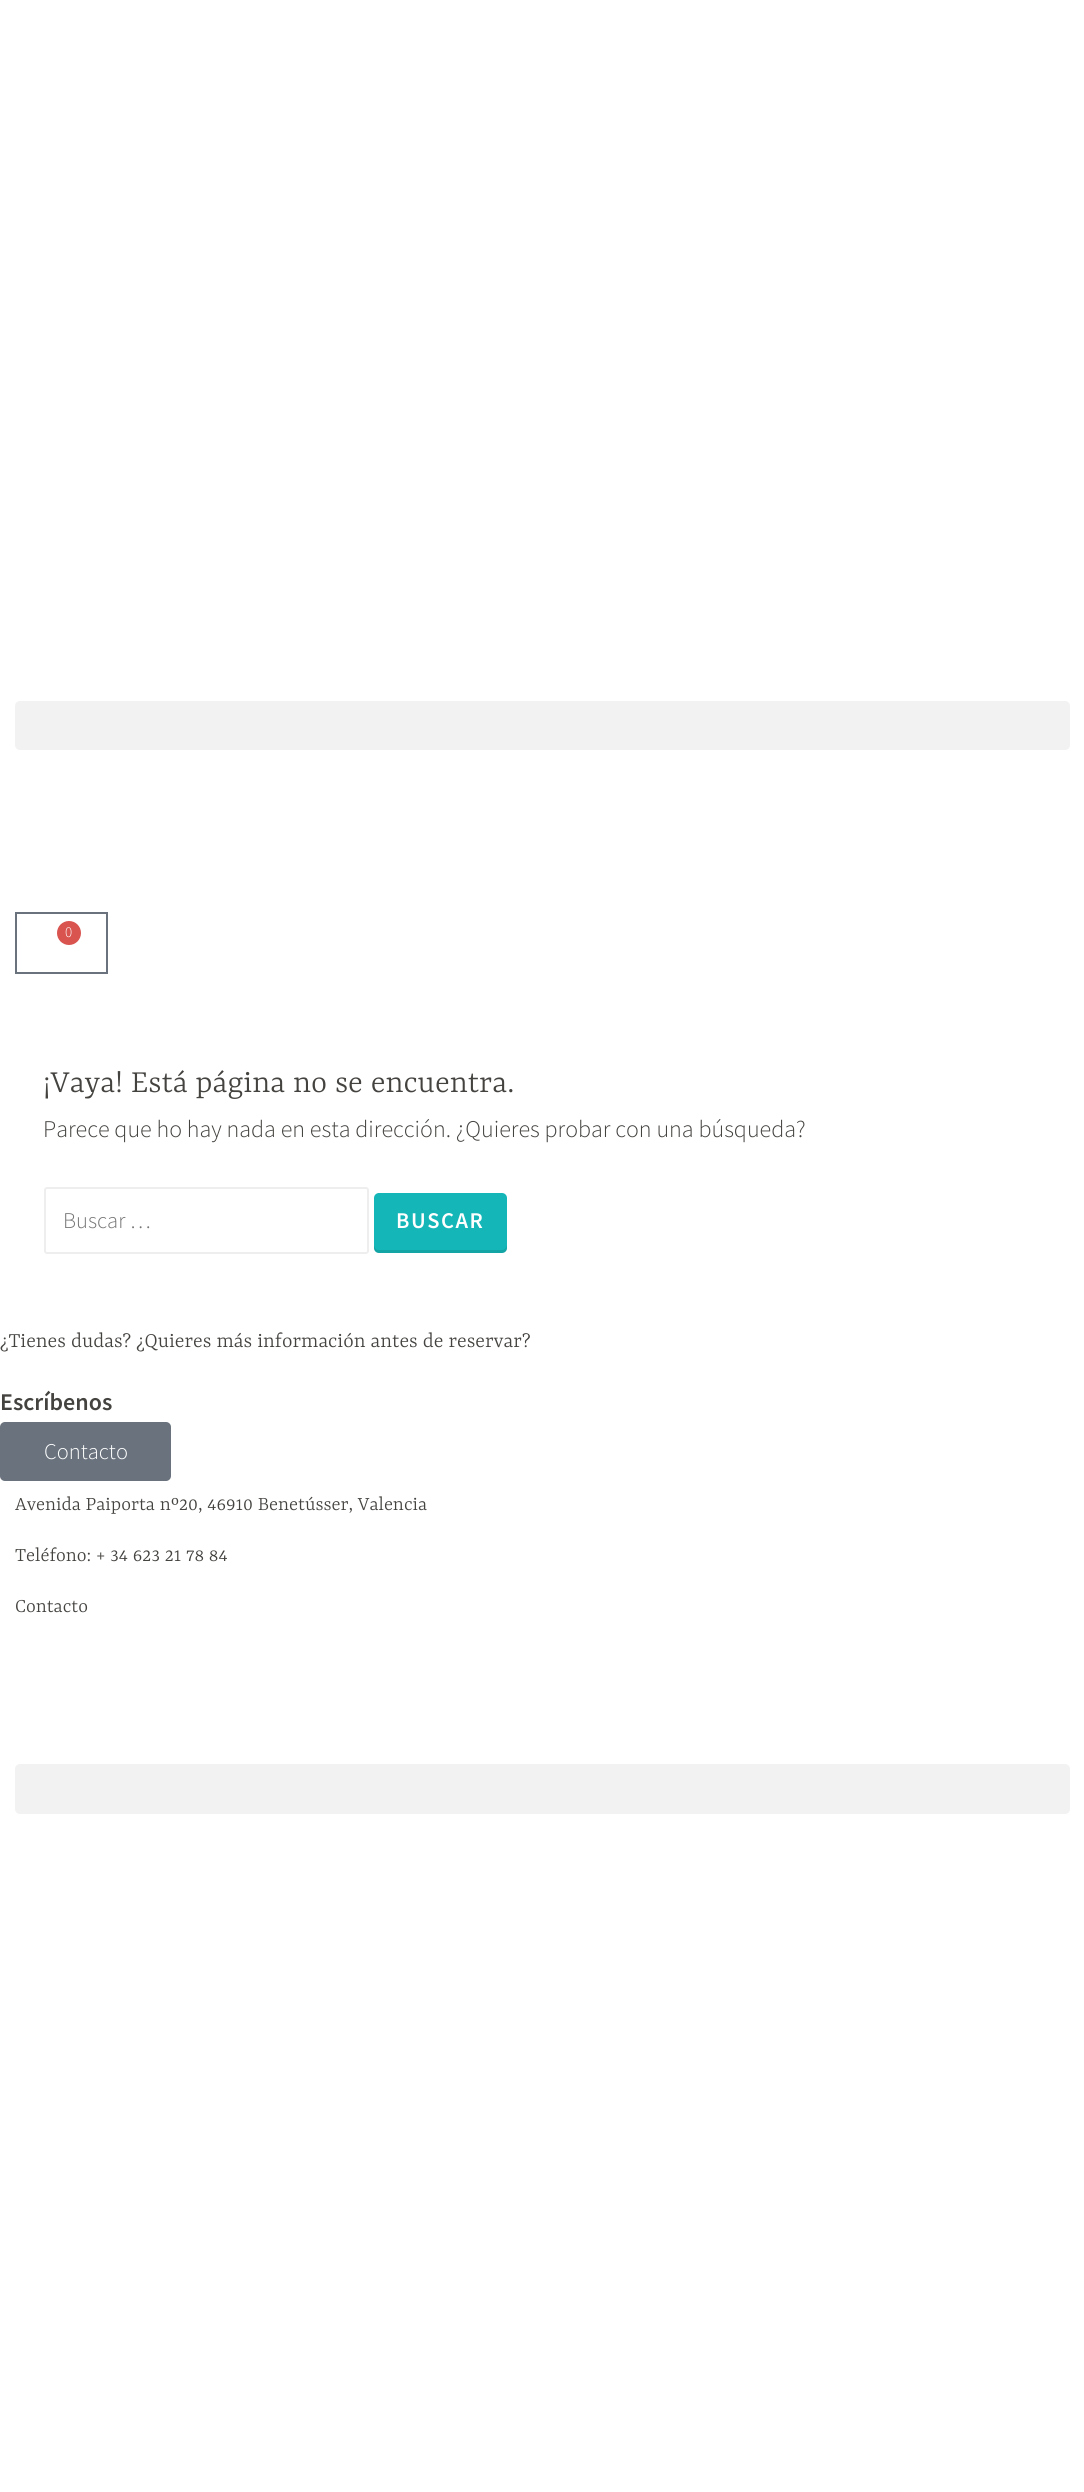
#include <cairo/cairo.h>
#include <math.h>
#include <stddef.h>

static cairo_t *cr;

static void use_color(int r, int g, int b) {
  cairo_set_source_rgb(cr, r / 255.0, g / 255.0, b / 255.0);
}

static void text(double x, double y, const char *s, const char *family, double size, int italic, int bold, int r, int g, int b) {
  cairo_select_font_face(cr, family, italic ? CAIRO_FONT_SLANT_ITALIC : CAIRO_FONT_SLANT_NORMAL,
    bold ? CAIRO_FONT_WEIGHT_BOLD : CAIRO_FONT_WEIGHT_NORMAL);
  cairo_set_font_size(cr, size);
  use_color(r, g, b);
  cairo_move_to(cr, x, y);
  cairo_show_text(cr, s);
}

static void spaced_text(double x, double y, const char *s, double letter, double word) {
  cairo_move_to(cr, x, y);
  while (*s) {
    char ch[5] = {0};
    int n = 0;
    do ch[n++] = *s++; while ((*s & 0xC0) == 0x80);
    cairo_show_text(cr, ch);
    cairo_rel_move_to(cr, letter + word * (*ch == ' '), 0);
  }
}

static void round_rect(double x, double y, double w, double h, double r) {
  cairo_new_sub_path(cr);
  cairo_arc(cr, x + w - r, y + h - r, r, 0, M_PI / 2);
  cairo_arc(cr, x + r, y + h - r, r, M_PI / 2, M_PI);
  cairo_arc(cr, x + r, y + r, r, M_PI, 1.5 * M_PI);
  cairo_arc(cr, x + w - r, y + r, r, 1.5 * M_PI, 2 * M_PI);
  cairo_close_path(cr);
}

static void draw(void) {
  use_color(255, 255, 255);
  cairo_paint(cr);
  use_color(242, 242, 242);
  round_rect(15, 701, 1055, 49, 5);
  cairo_fill(cr);
  cairo_rectangle(cr, 16, 913, 91, 60);
  use_color(105, 114, 125);
  cairo_stroke(cr);
  use_color(217, 83, 79);
  cairo_arc(cr, 69, 933, 12, 0, 2 * M_PI);
  cairo_fill(cr);
  round_rect(45, 1188, 323, 65, 2);
  use_color(238, 238, 238);
  cairo_stroke(cr);
  use_color(21, 182, 184);
  round_rect(374, 1193, 133, 60, 5);
  cairo_fill(cr);
  cairo_set_source_rgba(cr, 0, 0, 0, 0.1);
  cairo_new_path(cr);
  cairo_move_to(cr, 374, 1245);
  cairo_line_to(cr, 374, 1248);
  cairo_curve_to(cr, 374, 1251, 376, 1253, 379, 1253);
  cairo_line_to(cr, 502, 1253);
  cairo_curve_to(cr, 505, 1253, 507, 1251, 507, 1248);
  cairo_line_to(cr, 507, 1245);
  cairo_curve_to(cr, 507, 1247, 505, 1250, 502, 1250);
  cairo_line_to(cr, 378, 1250);
  cairo_curve_to(cr, 376, 1250, 374, 1247, 374, 1245);
  cairo_close_path(cr);
  cairo_fill(cr);
  use_color(105, 114, 125);
  round_rect(0, 1422, 171, 59, 5);
  cairo_fill(cr);
  use_color(242, 242, 242);
  round_rect(15, 1764, 1055, 50, 5);
  cairo_fill(cr);
  text(65, 937, "0", "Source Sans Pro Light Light", 15, 0, 0, 255, 255, 255);
  text(43, 1092, "¡Vaya! Está página no se encuentra.", "Yrsa Light", 34.5, 0, 0, 68, 67, 64);
  text(43, 1137, "Parece que ho hay nada en esta dirección. ¿Quieres probar con una búsqueda?", "Source Sans Pro Light Light", 24, 0, 0, 68, 67, 64);
  text(63, 1228, "Buscar …", "Source Sans Pro Light Light", 22.5, 0, 0, 117, 117, 117);
  cairo_select_font_face(cr, "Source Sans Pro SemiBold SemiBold", CAIRO_FONT_SLANT_NORMAL, CAIRO_FONT_WEIGHT_NORMAL);
  use_color(255, 255, 255);
  spaced_text(396, 1228, "BUSCAR", 1.5, 0);
  text(0, 1347, "¿Tienes dudas? ¿Quieres más información antes de reservar?", "Yrsa Light", 22.5, 0, 0, 68, 67, 64);
  text(0, 1410, "Escríbenos", "Source Sans Pro SemiBold SemiBold", 24, 0, 0, 68, 67, 64);
  text(44, 1459, "Contacto", "Source Sans Pro Light Light", 22.5, 0, 0, 255, 255, 255);
  text(15, 1510, "Avenida Paiporta nº20, 46910 Benetússer, Valencia", "Yrsa Light", 21, 0, 0, 68, 67, 64);
  text(15, 1561, "Teléfono: + 34 623 21 78 84", "Yrsa Light", 21, 0, 0, 68, 67, 64);
  text(15, 1612, "Contacto", "Yrsa Light", 21, 0, 0, 68, 67, 64);
}

int main(void) {
  cairo_surface_t *surface = cairo_image_surface_create(CAIRO_FORMAT_RGB24, 1084, 2492);
  cr = cairo_create(surface);
  cairo_font_options_t *options = cairo_font_options_create();
  cairo_font_options_set_hint_metrics(options, CAIRO_HINT_METRICS_OFF);
  cairo_font_options_set_hint_style(options, CAIRO_HINT_STYLE_NONE);
  cairo_set_font_options(cr, options);
  cairo_set_miter_limit(cr, 4);
  draw();
  cairo_surface_write_to_png(surface, "out.png");
  cairo_font_options_destroy(options);
  cairo_destroy(cr);
  cairo_surface_destroy(surface);
  return 0;
}
